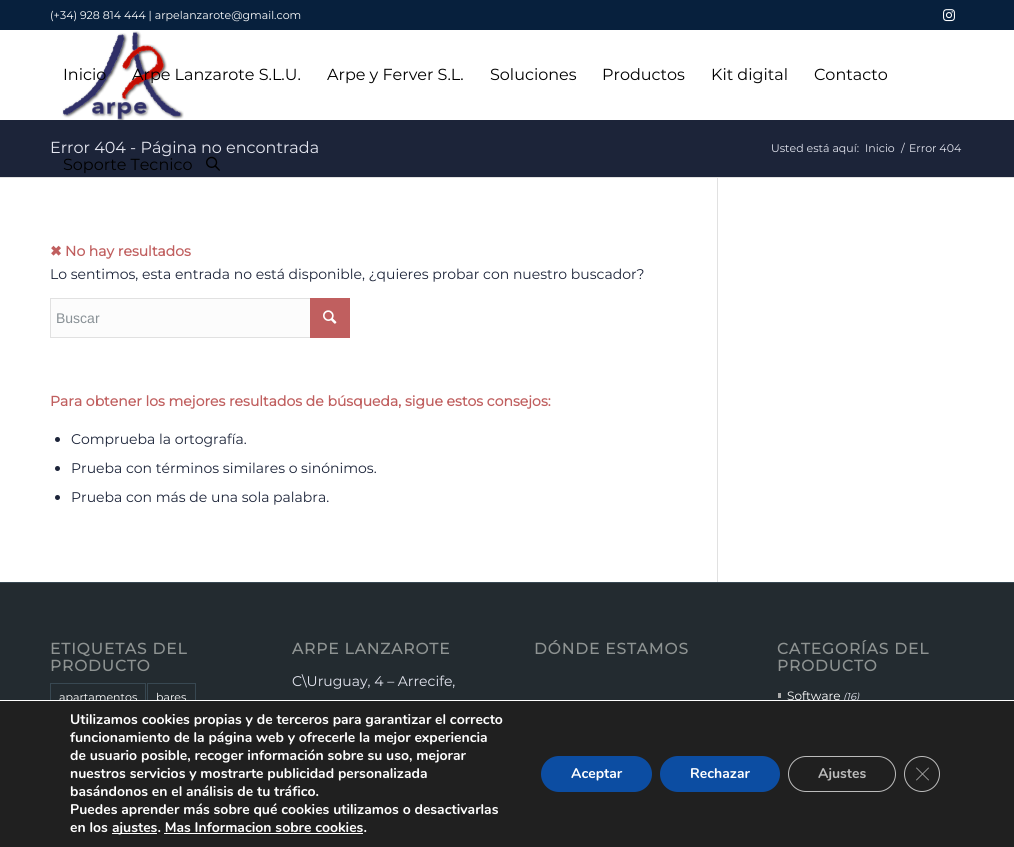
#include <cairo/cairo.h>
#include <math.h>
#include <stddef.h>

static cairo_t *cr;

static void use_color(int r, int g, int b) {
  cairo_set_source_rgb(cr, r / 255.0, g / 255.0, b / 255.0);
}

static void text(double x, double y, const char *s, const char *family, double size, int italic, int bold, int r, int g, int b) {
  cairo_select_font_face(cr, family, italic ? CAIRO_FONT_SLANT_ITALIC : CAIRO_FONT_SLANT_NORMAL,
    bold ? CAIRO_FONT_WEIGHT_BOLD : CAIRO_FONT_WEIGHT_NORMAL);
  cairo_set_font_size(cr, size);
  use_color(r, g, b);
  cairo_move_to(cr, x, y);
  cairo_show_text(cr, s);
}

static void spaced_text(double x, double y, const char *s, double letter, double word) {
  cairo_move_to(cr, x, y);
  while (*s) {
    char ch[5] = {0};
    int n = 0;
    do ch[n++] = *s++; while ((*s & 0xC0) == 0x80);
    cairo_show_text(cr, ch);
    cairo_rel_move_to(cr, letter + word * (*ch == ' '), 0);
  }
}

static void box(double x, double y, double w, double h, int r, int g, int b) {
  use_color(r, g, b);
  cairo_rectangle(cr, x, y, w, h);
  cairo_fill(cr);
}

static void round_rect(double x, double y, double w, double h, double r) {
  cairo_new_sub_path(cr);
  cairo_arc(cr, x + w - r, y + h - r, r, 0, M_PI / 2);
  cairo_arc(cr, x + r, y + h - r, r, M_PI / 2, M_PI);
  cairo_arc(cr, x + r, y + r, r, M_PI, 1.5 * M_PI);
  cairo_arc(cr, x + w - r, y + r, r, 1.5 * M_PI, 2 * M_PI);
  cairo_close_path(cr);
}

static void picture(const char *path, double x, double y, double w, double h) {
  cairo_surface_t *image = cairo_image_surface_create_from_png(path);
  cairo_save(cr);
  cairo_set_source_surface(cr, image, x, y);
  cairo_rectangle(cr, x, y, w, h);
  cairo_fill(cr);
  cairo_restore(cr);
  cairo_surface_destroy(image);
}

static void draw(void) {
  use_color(255, 255, 255);
  cairo_paint(cr);
  box(0, 0, 1014, 30, 7, 32, 61);
  picture("img_01.png", 943, 9, 12, 13);
  picture("img_02.png", 62, 31, 122, 89);
  box(0, 120, 1014, 57, 28, 36, 57);
  box(0, 177, 1014, 1, 225, 225, 225);
  box(717, 178, 1, 404, 225, 225, 225);
  box(51, 299, 259, 38, 252, 252, 252);
  cairo_rectangle(cr, 50.5, 298.5, 299, 39);
  use_color(225, 225, 225);
  cairo_set_line_width(cr, 1);
  cairo_stroke(cr);
  box(310, 298, 40, 40, 192, 95, 95);
  picture("img_04.png", 323, 310, 14, 14);
  use_color(28, 36, 57);
  cairo_arc(cr, 57.5, 439.5, 2.5, 0, 2 * M_PI);
  cairo_fill(cr);
  cairo_arc(cr, 57.5, 468.5, 2.5, 0, 2 * M_PI);
  cairo_fill(cr);
  cairo_arc(cr, 57.5, 497.5, 2.5, 0, 2 * M_PI);
  cairo_fill(cr);
  box(0, 583, 1014, 117, 35, 43, 48);
  box(0, 582, 1014, 1, 56, 72, 82);
  cairo_rectangle(cr, 50.5, 683.5, 95, 28);
  cairo_stroke(cr);
  cairo_rectangle(cr, 147.5, 683.5, 48, 28);
  cairo_stroke(cr);
  box(778, 693, 3, 5, 172, 172, 172);
  text(50, 19, "(+34) 928 814 444 | arpelanzarote@gmail.com", "Montserrat Thin", 11, 0, 0, 255, 255, 255);
  text(63, 80, "Inicio", "Montserrat Thin", 16, 0, 0, 0, 0, 0);
  text(132, 80, "Arpe Lanzarote S.L.U.", "Montserrat Thin", 16, 0, 0, 0, 0, 0);
  text(327, 80, "Arpe y Ferver S.L.", "Montserrat Thin", 16, 0, 0, 0, 0, 0);
  text(490, 80, "Soluciones", "Montserrat Thin", 16, 0, 0, 0, 0, 0);
  text(602, 80, "Productos", "Montserrat Thin", 16, 0, 0, 0, 0, 0);
  text(711, 80, "Kit digital", "Montserrat Thin", 16, 0, 0, 0, 0, 0);
  text(814, 80, "Contacto", "Montserrat Thin", 16, 0, 0, 0, 0, 0);
  text(63, 170, "Soporte Tecnico", "Montserrat Thin", 16, 0, 0, 0, 0, 0);
  text(50, 153, "Error 404 - Página no encontrada", "Montserrat Thin", 16, 0, 0, 228, 230, 240);
  picture("img_03.png", 206, 156, 14, 15);
  text(771, 152, "Usted está aquí:", "Montserrat Thin", 11, 0, 0, 228, 230, 240);
  text(865, 152, "Inicio", "Montserrat Thin", 11, 0, 0, 228, 230, 240);
  text(901, 152, "/", "Montserrat Thin", 11, 0, 0, 228, 230, 240);
  text(909, 152, "Error 404", "Montserrat Thin", 11, 0, 0, 228, 230, 240);
  text(50, 256, "✖", "DejaVu Sans", 14, 0, 1, 192, 95, 95);
  text(65, 256, "No hay resultados", "Montserrat", 14, 0, 1, 192, 95, 95);
  text(50, 279, "Lo sentimos, esta entrada no está disponible, ¿quieres probar con nuestro buscador?", "Montserrat Thin", 14, 0, 0, 28, 36, 57);
  text(56, 323, "Buscar", "Liberation Sans", 14, 0, 0, 136, 144, 149);
  text(50, 406, "Para obtener los mejores resultados de búsqueda, sigue estos consejos:", "Montserrat", 14, 0, 1, 192, 95, 95);
  text(71, 444, "Comprueba la ortografía.", "Montserrat Thin", 14, 0, 0, 28, 36, 57);
  text(71, 473, "Prueba con términos similares o sinónimos.", "Montserrat Thin", 14, 0, 0, 28, 36, 57);
  text(71, 502, "Prueba con más de una sola palabra.", "Montserrat Thin", 14, 0, 0, 28, 36, 57);
  cairo_select_font_face(cr, "Montserrat", CAIRO_FONT_SLANT_NORMAL, CAIRO_FONT_WEIGHT_BOLD);
  cairo_set_font_size(cr, 15.4);
  use_color(142, 147, 146);
  spaced_text(50, 654, "ETIQUETAS DEL", 1, 0);
  spaced_text(50, 671, "PRODUCTO", 1, 0);
  text(59, 701, "apartamentos", "Montserrat Thin", 11, 0, 0, 255, 255, 255);
  text(156, 701, "bares", "Montserrat Thin", 11, 0, 0, 255, 255, 255);
  cairo_select_font_face(cr, "Montserrat", CAIRO_FONT_SLANT_NORMAL, CAIRO_FONT_WEIGHT_BOLD);
  cairo_set_font_size(cr, 15.4);
  use_color(142, 147, 146);
  spaced_text(292, 654, "ARPE LANZAROTE", 1, 0);
  text(292, 686, "C\\Uruguay, 4 – Arrecife,", "Montserrat Thin", 14, 0, 0, 228, 230, 240);
  cairo_select_font_face(cr, "Montserrat", CAIRO_FONT_SLANT_NORMAL, CAIRO_FONT_WEIGHT_BOLD);
  cairo_set_font_size(cr, 15.4);
  use_color(142, 147, 146);
  spaced_text(534, 654, "DÓNDE ESTAMOS", 1, 0);
  spaced_text(777, 654, "CATEGORÍAS DEL", 1, 0);
  spaced_text(777, 671, "PRODUCTO", 1, 0);
  text(787, 700, "Software", "Montserrat Thin", 12, 0, 0, 255, 255, 255);
  text(843, 700, "(16)", "Montserrat Thin", 10, 1, 0, 228, 230, 240);
  box(0, 701, 1014, 146, 32, 32, 32);
  box(50, 700, 808, 1, 255, 255, 255);
  text(70, 724, "Utilizamos cookies propias y de terceros para garantizar el correcto", "Nunito", 14, 0, 1, 255, 255, 255);
  text(70, 742, "funcionamiento de la página web y ofrecerle la mejor experiencia", "Nunito", 14, 0, 1, 255, 255, 255);
  text(70, 760, "de usuario posible, recoger información sobre su uso, mejorar", "Nunito", 14, 0, 1, 255, 255, 255);
  text(70, 778, "nuestros servicios y mostrarte publicidad personalizada", "Nunito", 14, 0, 1, 255, 255, 255);
  text(70, 796, "basándonos en el análisis de tu tráfico.", "Nunito", 14, 0, 1, 255, 255, 255);
  text(70, 814, "Puedes aprender más sobre qué cookies utilizamos o desactivarlas", "Nunito", 14, 0, 1, 255, 255, 255);
  text(70, 832, "en los", "Nunito", 14, 0, 1, 255, 255, 255);
  box(112, 833, 45, 1, 255, 255, 255);
  text(112, 832, "ajustes. Mas Informacion sobre cookies.", "Nunito", 14, 0, 1, 255, 255, 255);
  box(164, 833, 199, 1, 255, 255, 255);
  use_color(12, 77, 162);
  round_rect(541, 756, 111, 36, 18);
  cairo_fill(cr);
  text(571, 778, "Aceptar", "Nunito", 14, 0, 1, 255, 255, 255);
  use_color(12, 77, 162);
  round_rect(660, 756, 120, 36, 18);
  cairo_fill(cr);
  text(690, 778, "Rechazar", "Nunito", 14, 0, 1, 255, 255, 255);
  round_rect(788.5, 756.5, 107, 35, 17.5);
  use_color(188, 188, 188);
  cairo_stroke(cr);
  text(818, 778, "Ajustes", "Nunito", 14, 0, 1, 188, 188, 188);
  cairo_new_path(cr);
  cairo_arc(cr, 922, 774, 17.5, 0, 2 * M_PI);
  cairo_stroke(cr);
  cairo_new_path(cr);
  cairo_move_to(cr, 928.5, 767.5);
  cairo_line_to(cr, 929, 768);
  cairo_line_to(cr, 916.5, 780.5);
  cairo_line_to(cr, 916, 780);
  cairo_close_path(cr);
  cairo_fill(cr);
  cairo_new_path(cr);
  cairo_move_to(cr, 916, 768);
  cairo_line_to(cr, 916.5, 767.5);
  cairo_line_to(cr, 929, 780);
  cairo_line_to(cr, 928.5, 780.5);
  cairo_close_path(cr);
  cairo_fill(cr);
}

int main(void) {
  cairo_surface_t *surface = cairo_image_surface_create(CAIRO_FORMAT_RGB24, 1014, 847);
  cr = cairo_create(surface);
  cairo_font_options_t *options = cairo_font_options_create();
  cairo_font_options_set_hint_metrics(options, CAIRO_HINT_METRICS_OFF);
  cairo_font_options_set_hint_style(options, CAIRO_HINT_STYLE_NONE);
  cairo_set_font_options(cr, options);
  cairo_set_miter_limit(cr, 4);
  draw();
  cairo_surface_write_to_png(surface, "out.png");
  cairo_font_options_destroy(options);
  cairo_destroy(cr);
  cairo_surface_destroy(surface);
  return 0;
}
